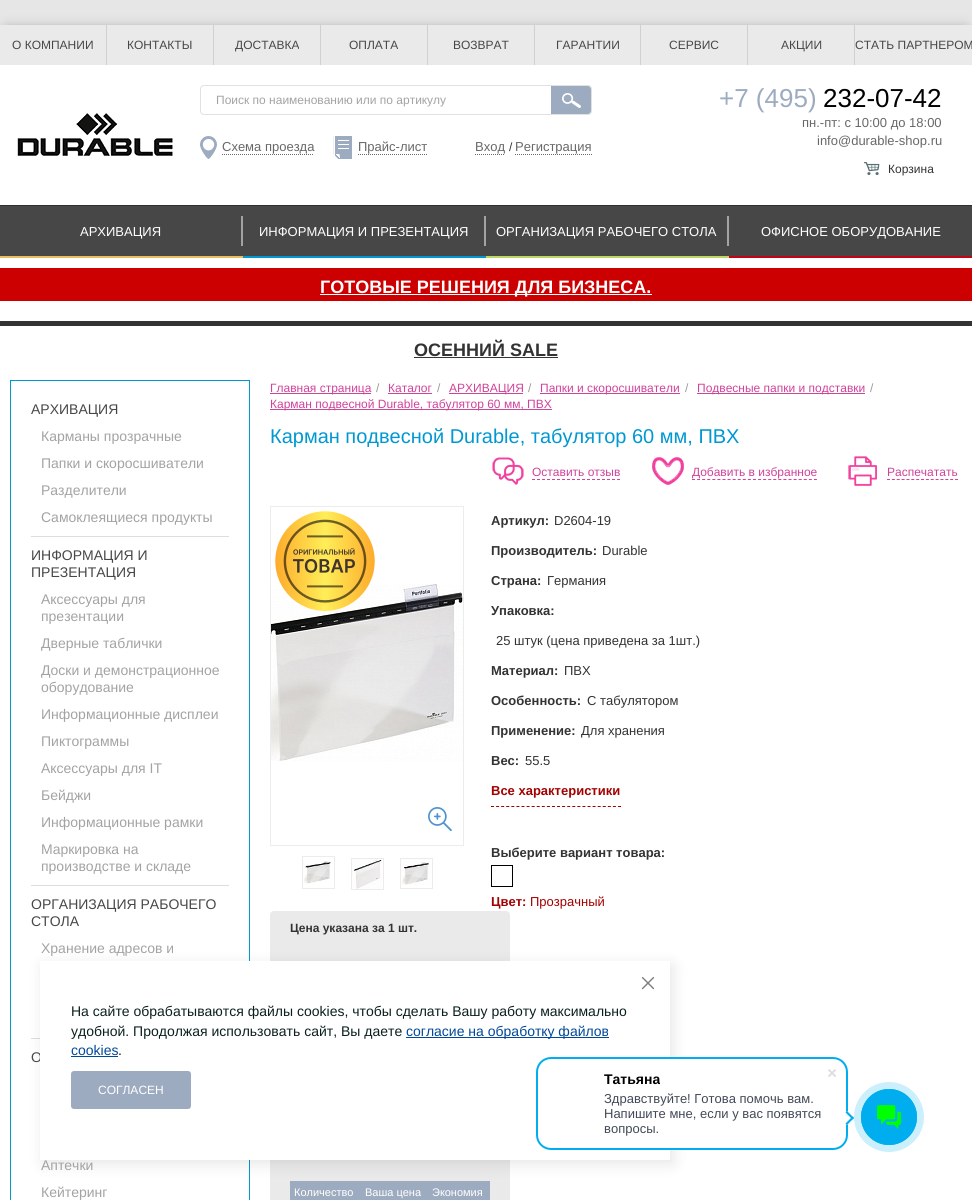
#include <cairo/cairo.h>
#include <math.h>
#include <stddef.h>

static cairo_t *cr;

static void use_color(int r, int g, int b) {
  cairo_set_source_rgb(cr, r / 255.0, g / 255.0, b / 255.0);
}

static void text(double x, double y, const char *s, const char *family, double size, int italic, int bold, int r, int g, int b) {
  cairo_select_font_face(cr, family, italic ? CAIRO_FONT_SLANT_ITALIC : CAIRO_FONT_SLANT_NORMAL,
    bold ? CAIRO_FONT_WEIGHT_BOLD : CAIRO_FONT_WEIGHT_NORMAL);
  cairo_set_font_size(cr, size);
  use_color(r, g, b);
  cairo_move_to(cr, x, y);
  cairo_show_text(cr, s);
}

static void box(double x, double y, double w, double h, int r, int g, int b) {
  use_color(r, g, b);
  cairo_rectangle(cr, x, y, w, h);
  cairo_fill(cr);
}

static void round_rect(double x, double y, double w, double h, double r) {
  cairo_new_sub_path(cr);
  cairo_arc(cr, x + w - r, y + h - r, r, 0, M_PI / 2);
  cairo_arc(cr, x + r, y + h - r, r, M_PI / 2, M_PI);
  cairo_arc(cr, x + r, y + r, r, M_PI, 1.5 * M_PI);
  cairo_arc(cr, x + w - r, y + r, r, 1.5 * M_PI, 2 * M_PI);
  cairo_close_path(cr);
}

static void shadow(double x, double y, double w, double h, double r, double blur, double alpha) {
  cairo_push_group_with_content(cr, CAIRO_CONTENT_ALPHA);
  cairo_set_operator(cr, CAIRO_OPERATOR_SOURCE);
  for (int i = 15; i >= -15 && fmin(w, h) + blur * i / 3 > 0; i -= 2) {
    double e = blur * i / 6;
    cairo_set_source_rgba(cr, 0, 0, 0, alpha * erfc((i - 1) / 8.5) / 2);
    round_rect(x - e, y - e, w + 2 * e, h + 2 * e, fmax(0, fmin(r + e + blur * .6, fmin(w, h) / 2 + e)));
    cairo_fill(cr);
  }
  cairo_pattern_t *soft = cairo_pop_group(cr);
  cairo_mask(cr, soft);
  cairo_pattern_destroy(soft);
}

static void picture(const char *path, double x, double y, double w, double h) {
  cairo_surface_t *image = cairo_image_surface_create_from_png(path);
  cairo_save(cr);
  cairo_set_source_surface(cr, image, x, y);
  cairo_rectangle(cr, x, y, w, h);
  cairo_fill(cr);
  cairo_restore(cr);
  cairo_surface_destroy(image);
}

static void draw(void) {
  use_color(255, 255, 255);
  cairo_paint(cr);
  picture("img_01.png", 0, 0, 972, 25);
  use_color(0, 0, 0);
  shadow(0, 25, 972, 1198, 8, 5, 0.2);
  box(0, 65, 972, 1135, 255, 255, 255);
  box(0, 25, 972, 40, 234, 234, 234);
  box(106, 25, 1, 40, 208, 208, 208);
  box(213, 25, 1, 40, 208, 208, 208);
  box(320, 25, 1, 40, 208, 208, 208);
  box(427, 25, 1, 40, 208, 208, 208);
  box(534, 25, 1, 40, 208, 208, 208);
  box(640, 25, 1, 40, 208, 208, 208);
  box(747, 25, 1, 40, 208, 208, 208);
  box(854, 25, 1, 40, 208, 208, 208);
  picture("img_02.png", 17, 113, 156, 43);
  round_rect(200.5, 85.5, 391, 29, 3.5);
  use_color(225, 225, 225);
  cairo_set_line_width(cr, 1);
  cairo_stroke(cr);
  use_color(157, 171, 192);
  cairo_new_path(cr);
  cairo_move_to(cr, 551, 86);
  cairo_line_to(cr, 588, 86);
  cairo_curve_to(cr, 589.5, 86, 591, 87.5, 591, 89);
  cairo_line_to(cr, 591, 111);
  cairo_curve_to(cr, 591, 112.5, 589.5, 114, 588, 114);
  cairo_line_to(cr, 551, 114);
  cairo_close_path(cr);
  cairo_fill(cr);
  picture("img_03.png", 562, 93, 19, 15);
  picture("img_04.png", 200, 136, 17, 23);
  cairo_new_path(cr);
  cairo_move_to(cr, 222, 154.5);
  cairo_line_to(cr, 314, 154.5);
  use_color(104, 104, 104);
  cairo_set_dash(cr, (double[]){1, 1}, 2, 0);
  cairo_stroke(cr);
  picture("img_05.png", 333, 136, 19, 23);
  cairo_new_path(cr);
  cairo_move_to(cr, 358, 154.5);
  cairo_line_to(cr, 427, 154.5);
  cairo_stroke(cr);
  cairo_new_path(cr);
  cairo_move_to(cr, 475, 154.5);
  cairo_line_to(cr, 505, 154.5);
  cairo_stroke(cr);
  cairo_new_path(cr);
  cairo_move_to(cr, 515, 154.5);
  cairo_line_to(cr, 592, 154.5);
  cairo_stroke(cr);
  picture("img_06.png", 864, 162, 16, 13);
  box(0, 206, 972, 50, 71, 71, 71);
  box(0, 205, 972, 1, 48, 48, 48);
  box(0, 256, 243, 2, 237, 187, 96);
  box(241, 216, 2, 30, 163, 163, 163);
  box(243, 256, 243, 2, 0, 152, 209);
  box(484, 216, 2, 30, 163, 163, 163);
  box(486, 256, 243, 2, 189, 214, 100);
  box(727, 216, 2, 30, 163, 163, 163);
  box(729, 256, 243, 2, 195, 4, 22);
  box(0, 268, 972, 33, 204, 0, 0);
  box(320, 294, 332, 1, 255, 255, 255);
  box(0, 321, 972, 5, 51, 51, 51);
  box(414, 357, 144, 1, 51, 51, 51);
  cairo_rectangle(cr, 10.5, 380.5, 239, 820);
  use_color(0, 152, 209);
  cairo_set_dash(cr, NULL, 0, 0);
  cairo_stroke(cr);
  box(31, 536, 198, 1, 221, 221, 221);
  box(31, 885, 198, 1, 221, 221, 221);
  box(31, 1038, 9, 1, 221, 221, 221);
  box(270, 393, 101, 1, 209, 66, 154);
  box(388, 393, 44, 1, 209, 66, 154);
  box(449, 393, 74, 1, 209, 66, 154);
  box(540, 393, 140, 1, 209, 66, 154);
  box(697, 393, 168, 1, 209, 66, 154);
  box(270, 409, 282, 1, 209, 66, 154);
  picture("img_07.png", 492, 457, 32, 28);
  cairo_new_path(cr);
  cairo_move_to(cr, 532, 479.5);
  cairo_line_to(cr, 620, 479.5);
  cairo_set_dash(cr, (double[]){3, 2}, 2, 0);
  cairo_stroke(cr);
  picture("img_08.png", 652, 457, 32, 28);
  cairo_new_path(cr);
  cairo_move_to(cr, 692, 479.5);
  cairo_line_to(cr, 817, 479.5);
  cairo_set_dash(cr, (double[]){3, 2.08}, 2, 0);
  cairo_stroke(cr);
  picture("img_09.png", 848, 456, 29, 30);
  cairo_new_path(cr);
  cairo_move_to(cr, 887, 479.5);
  cairo_line_to(cr, 958, 479.5);
  cairo_set_dash(cr, (double[]){3, 1.86}, 2, 0);
  cairo_stroke(cr);
  cairo_rectangle(cr, 270.5, 506.5, 193, 339);
  use_color(236, 236, 236);
  cairo_set_dash(cr, NULL, 0, 0);
  cairo_stroke(cr);
  picture("img_10.png", 271, 584, 192, 177);
  picture("img_11.png", 428, 807, 24, 24);
  picture("img_12.png", 275, 511, 100, 100);
  cairo_rectangle(cr, 302.5, 856.5, 32, 32);
  cairo_stroke(cr);
  picture("img_13.png", 303, 861, 28, 23);
  cairo_rectangle(cr, 351.5, 858.5, 32, 31);
  cairo_stroke(cr);
  picture("img_14.png", 352, 859, 30, 30);
  cairo_rectangle(cr, 400.5, 858.5, 32, 30);
  cairo_stroke(cr);
  picture("img_15.png", 401, 859, 30, 26);
  cairo_new_path(cr);
  cairo_move_to(cr, 491, 806.5);
  cairo_line_to(cr, 621, 806.5);
  use_color(163, 1, 1);
  cairo_set_dash(cr, (double[]){3, 2.08}, 2, 0);
  cairo_stroke(cr);
  cairo_rectangle(cr, 491.5, 865.5, 21, 21);
  use_color(0, 0, 0);
  cairo_set_dash(cr, NULL, 0, 0);
  cairo_stroke(cr);
  use_color(234, 234, 234);
  round_rect(270, 911, 240, 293, 4);
  cairo_fill(cr);
  box(290, 1181, 200, 1, 157, 171, 192);
  box(290, 1181, 1, 19, 157, 171, 192);
  box(291, 1182, 199, 18, 157, 171, 192);
  use_color(0, 0, 0);
  shadow(43, 965, 630, 199, 0, 7.5, 0.1);
  use_color(204, 239, 252);
  cairo_arc(cr, 889, 1117, 35, 0, 2 * M_PI);
  cairo_fill(cr);
  cairo_arc(cr, 889, 1117, 27.6, 0, 2 * M_PI);
  use_color(0, 174, 239);
  cairo_set_line_width(cr, 0.8);
  cairo_stroke(cr);
  cairo_arc(cr, 889, 1117, 28, 0, 2 * M_PI);
  cairo_fill(cr);
  picture("img_18.png", 877, 1105, 24, 24);
  text(12, 49, "О КОМПАНИИ", "Liberation Sans", 12, 0, 0, 71, 71, 71);
  text(127, 49, "КОНТАКТЫ", "Liberation Sans", 12, 0, 0, 71, 71, 71);
  text(235, 49, "ДОСТАВКА", "Liberation Sans", 12, 0, 0, 71, 71, 71);
  text(349, 49, "ОПЛАТА", "Liberation Sans", 12, 0, 0, 71, 71, 71);
  text(453, 49, "ВОЗВРАТ", "Liberation Sans", 12, 0, 0, 71, 71, 71);
  text(556, 49, "ГАРАНТИИ", "Liberation Sans", 12, 0, 0, 71, 71, 71);
  text(669, 49, "СЕРВИС", "Liberation Sans", 12, 0, 0, 71, 71, 71);
  text(781, 49, "АКЦИИ", "Liberation Sans", 12, 0, 0, 71, 71, 71);
  text(855, 49, "СТАТЬ ПАРТНЕРОМ", "Liberation Sans", 12, 0, 0, 71, 71, 71);
  text(216, 104, "Поиск по наименованию или по артикулу", "Liberation Sans", 12, 0, 0, 163, 163, 163);
  text(222, 151, "Схема проезда", "Liberation Sans", 13, 0, 0, 104, 104, 104);
  text(358, 151, "Прайс-лист", "Liberation Sans", 13, 0, 0, 104, 104, 104);
  text(475, 151, "Вход", "Liberation Sans", 13, 0, 0, 104, 104, 104);
  text(509, 151, "/", "Liberation Sans", 12, 0, 0, 51, 51, 51);
  text(515, 151, "Регистрация", "Liberation Sans", 13, 0, 0, 104, 104, 104);
  text(719, 107, "+7 (495)", "Liberation Sans", 26, 0, 0, 157, 171, 192);
  text(823, 107, "232-07-42", "Liberation Sans", 26, 0, 0, 0, 0, 0);
  text(802, 127, "пн.-пт: с 10:00 до 18:00", "Liberation Sans", 13, 0, 0, 104, 104, 104);
  text(817, 145, "info@durable-shop.ru", "Liberation Sans", 13, 0, 0, 104, 104, 104);
  text(888, 173, "Корзина", "Liberation Sans", 12, 0, 0, 51, 51, 51);
  text(80, 236, "АРХИВАЦИЯ", "Liberation Sans", 13, 0, 0, 255, 255, 255);
  text(259, 236, "ИНФОРМАЦИЯ И ПРЕЗЕНТАЦИЯ", "Liberation Sans", 13, 0, 0, 255, 255, 255);
  text(496, 236, "ОРГАНИЗАЦИЯ РАБОЧЕГО СТОЛА", "Liberation Sans", 13, 0, 0, 255, 255, 255);
  text(761, 236, "ОФИСНОЕ ОБОРУДОВАНИЕ", "Liberation Sans", 13, 0, 0, 255, 255, 255);
  text(320, 293, "ГОТОВЫЕ РЕШЕНИЯ ДЛЯ БИЗНЕСА.", "Liberation Sans", 18, 0, 1, 255, 255, 255);
  text(414, 356, "ОСЕННИЙ SALE", "Liberation Sans", 18, 0, 1, 51, 51, 51);
  text(31, 414, "АРХИВАЦИЯ", "Liberation Sans", 14, 0, 0, 71, 71, 71);
  text(41, 441, "Карманы прозрачные", "Liberation Sans", 14, 0, 0, 163, 163, 163);
  text(41, 468, "Папки и скоросшиватели", "Liberation Sans", 14, 0, 0, 163, 163, 163);
  text(41, 495, "Разделители", "Liberation Sans", 14, 0, 0, 163, 163, 163);
  text(41, 522, "Самоклеящиеся продукты", "Liberation Sans", 14, 0, 0, 163, 163, 163);
  text(31, 560, "ИНФОРМАЦИЯ И", "Liberation Sans", 14, 0, 0, 71, 71, 71);
  text(31, 577, "ПРЕЗЕНТАЦИЯ", "Liberation Sans", 14, 0, 0, 71, 71, 71);
  text(41, 604, "Аксессуары для", "Liberation Sans", 14, 0, 0, 163, 163, 163);
  text(41, 621, "презентации", "Liberation Sans", 14, 0, 0, 163, 163, 163);
  text(41, 648, "Дверные таблички", "Liberation Sans", 14, 0, 0, 163, 163, 163);
  text(41, 675, "Доски и демонстрационное", "Liberation Sans", 14, 0, 0, 163, 163, 163);
  text(41, 692, "оборудование", "Liberation Sans", 14, 0, 0, 163, 163, 163);
  text(41, 719, "Информационные дисплеи", "Liberation Sans", 14, 0, 0, 163, 163, 163);
  text(41, 746, "Пиктограммы", "Liberation Sans", 14, 0, 0, 163, 163, 163);
  text(41, 773, "Аксессуары для IT", "Liberation Sans", 14, 0, 0, 163, 163, 163);
  text(41, 800, "Бейджи", "Liberation Sans", 14, 0, 0, 163, 163, 163);
  text(41, 827, "Информационные рамки", "Liberation Sans", 14, 0, 0, 163, 163, 163);
  text(41, 854, "Маркировка на", "Liberation Sans", 14, 0, 0, 163, 163, 163);
  text(41, 871, "производстве и складе", "Liberation Sans", 14, 0, 0, 163, 163, 163);
  text(31, 909, "ОРГАНИЗАЦИЯ РАБОЧЕГО", "Liberation Sans", 14, 0, 0, 71, 71, 71);
  text(31, 926, "СТОЛА", "Liberation Sans", 14, 0, 0, 71, 71, 71);
  text(41, 953, "Хранение адресов и", "Liberation Sans", 14, 0, 0, 163, 163, 163);
  text(31, 1062, "О", "Liberation Sans", 14, 0, 0, 71, 71, 71);
  text(41, 1170, "Аптечки", "Liberation Sans", 14, 0, 0, 163, 163, 163);
  text(41, 1197, "Кейтеринг", "Liberation Sans", 14, 0, 0, 163, 163, 163);
  text(270, 392, "Главная страница", "Liberation Sans", 12, 0, 0, 209, 66, 154);
  text(376, 392, "/", "Liberation Sans", 12, 0, 0, 153, 153, 153);
  text(388, 392, "Каталог", "Liberation Sans", 12, 0, 0, 209, 66, 154);
  text(437, 392, "/", "Liberation Sans", 12, 0, 0, 153, 153, 153);
  text(449, 392, "АРХИВАЦИЯ", "Liberation Sans", 12, 0, 0, 209, 66, 154);
  text(528, 392, "/", "Liberation Sans", 12, 0, 0, 153, 153, 153);
  text(540, 392, "Папки и скоросшиватели", "Liberation Sans", 12, 0, 0, 209, 66, 154);
  text(685, 392, "/", "Liberation Sans", 12, 0, 0, 153, 153, 153);
  text(697, 392, "Подвесные папки и подставки", "Liberation Sans", 12, 0, 0, 209, 66, 154);
  text(870, 392, "/", "Liberation Sans", 12, 0, 0, 153, 153, 153);
  text(270, 408, "Карман подвесной Durable, табулятор 60 мм, ПВХ", "Liberation Sans", 12, 0, 0, 209, 66, 154);
  text(270, 443, "Карман подвесной Durable, табулятор 60 мм, ПВХ", "Liberation Sans", 20, 0, 0, 0, 152, 209);
  text(532, 476, "Оставить отзыв", "Liberation Sans", 12, 0, 0, 209, 66, 154);
  text(692, 476, "Добавить в избранное", "Liberation Sans", 12, 0, 0, 209, 66, 154);
  text(887, 476, "Распечатать", "Liberation Sans", 12, 0, 0, 209, 66, 154);
  text(491, 525, "Артикул:", "Liberation Sans", 13, 0, 1, 51, 51, 51);
  text(554, 525, "D2604-19", "Liberation Sans", 13, 0, 0, 51, 51, 51);
  text(491, 555, "Производитель:", "Liberation Sans", 13, 0, 1, 51, 51, 51);
  text(602, 555, "Durable", "Liberation Sans", 13, 0, 0, 51, 51, 51);
  text(491, 585, "Страна:", "Liberation Sans", 13, 0, 1, 51, 51, 51);
  text(547, 585, "Германия", "Liberation Sans", 13, 0, 0, 51, 51, 51);
  text(491, 615, "Упаковка:", "Liberation Sans", 13, 0, 1, 51, 51, 51);
  text(496, 645, "25 штук (цена приведена за 1шт.)", "Liberation Sans", 13, 0, 0, 51, 51, 51);
  text(491, 675, "Материал:", "Liberation Sans", 13, 0, 1, 51, 51, 51);
  text(564, 675, "ПВХ", "Liberation Sans", 13, 0, 0, 51, 51, 51);
  text(491, 705, "Особенность:", "Liberation Sans", 13, 0, 1, 51, 51, 51);
  text(587, 705, "С табулятором", "Liberation Sans", 13, 0, 0, 51, 51, 51);
  text(491, 735, "Применение:", "Liberation Sans", 13, 0, 1, 51, 51, 51);
  text(581, 735, "Для хранения", "Liberation Sans", 13, 0, 0, 51, 51, 51);
  text(491, 765, "Вес:", "Liberation Sans", 13, 0, 1, 51, 51, 51);
  text(525, 765, "55.5", "Liberation Sans", 13, 0, 0, 51, 51, 51);
  text(491, 795, "Все характеристики", "Liberation Sans", 13, 0, 1, 163, 1, 1);
  text(491, 857, "Выберите вариант товара:", "Liberation Sans", 13, 0, 1, 51, 51, 51);
  text(491, 906, "Цвет:", "Liberation Sans", 13, 0, 1, 163, 1, 1);
  text(530, 906, "Прозрачный", "Liberation Sans", 13, 0, 0, 163, 1, 1);
  text(290, 932, "Цена указана за 1 шт.", "Liberation Sans", 12, 0, 1, 51, 51, 51);
  text(294, 1196, "Количество", "Liberation Sans", 11, 0, 0, 255, 255, 255);
  text(365, 1196, "Ваша цена", "Liberation Sans", 11, 0, 0, 255, 255, 255);
  text(432, 1196, "Экономия", "Liberation Sans", 11, 0, 0, 255, 255, 255);
  box(40, 961, 630, 199, 255, 255, 255);
  picture("img_16.png", 641, 977, 14, 13);
  text(71, 1016, "На сайте обрабатываются файлы cookies, чтобы сделать Вашу работу максимально", "Liberation Sans", 14, 0, 0, 11, 32, 29);
  text(71, 1036, "удобной. Продолжая использовать сайт, Вы даете", "Liberation Sans", 14, 0, 0, 11, 32, 29);
  box(406, 1037, 203, 1, 0, 72, 153);
  text(406, 1036, "согласие на обработку файлов", "Liberation Sans", 14, 0, 0, 0, 72, 153);
  text(71, 1055, "cookies", "Liberation Sans", 14, 0, 0, 0, 72, 153);
  box(71, 1056, 47, 1, 0, 72, 153);
  text(118, 1055, ".", "Liberation Sans", 14, 0, 0, 11, 32, 29);
  use_color(157, 171, 192);
  round_rect(71, 1071, 120, 38, 3);
  cairo_fill(cr);
  text(98, 1094, "СОГЛАСЕН", "Liberation Sans", 12, 0, 0, 255, 255, 255);
  round_rect(537, 1058, 310, 91, 14);
  cairo_fill_preserve(cr);
  use_color(0, 174, 239);
  cairo_set_line_width(cr, 2);
  cairo_stroke(cr);
  picture("img_17.png", 828, 1069, 8, 8);
  text(604, 1084, "Татьяна", "Liberation Sans", 14, 0, 1, 0, 0, 0);
  text(604, 1103, "Здравствуйте! Готова помочь вам.", "Liberation Sans", 13, 0, 0, 66, 73, 86);
  text(604, 1118, "Напишите мне, если у вас появятся", "Liberation Sans", 13, 0, 0, 66, 73, 86);
  text(604, 1133, "вопросы.", "Liberation Sans", 13, 0, 0, 66, 73, 86);
  use_color(255, 255, 255);
  cairo_new_path(cr);
  cairo_move_to(cr, 840, 1118);
  cairo_line_to(cr, 847, 1111);
  cairo_line_to(cr, 854, 1118);
  cairo_line_to(cr, 847, 1125);
  cairo_close_path(cr);
  cairo_fill(cr);
  use_color(0, 174, 239);
  cairo_new_path(cr);
  cairo_move_to(cr, 845.5, 1112.5);
  cairo_line_to(cr, 847, 1111);
  cairo_line_to(cr, 854, 1118);
  cairo_line_to(cr, 852.5, 1119.5);
  cairo_close_path(cr);
  cairo_fill(cr);
  cairo_new_path(cr);
  cairo_move_to(cr, 845.5, 1123.5);
  cairo_line_to(cr, 852.5, 1116.5);
  cairo_line_to(cr, 854, 1118);
  cairo_line_to(cr, 847, 1125);
  cairo_close_path(cr);
  cairo_fill(cr);
}

int main(void) {
  cairo_surface_t *surface = cairo_image_surface_create(CAIRO_FORMAT_RGB24, 972, 1200);
  cr = cairo_create(surface);
  cairo_font_options_t *options = cairo_font_options_create();
  cairo_font_options_set_hint_metrics(options, CAIRO_HINT_METRICS_OFF);
  cairo_font_options_set_hint_style(options, CAIRO_HINT_STYLE_NONE);
  cairo_set_font_options(cr, options);
  cairo_set_miter_limit(cr, 4);
  draw();
  cairo_surface_write_to_png(surface, "out.png");
  cairo_font_options_destroy(options);
  cairo_destroy(cr);
  cairo_surface_destroy(surface);
  return 0;
}
